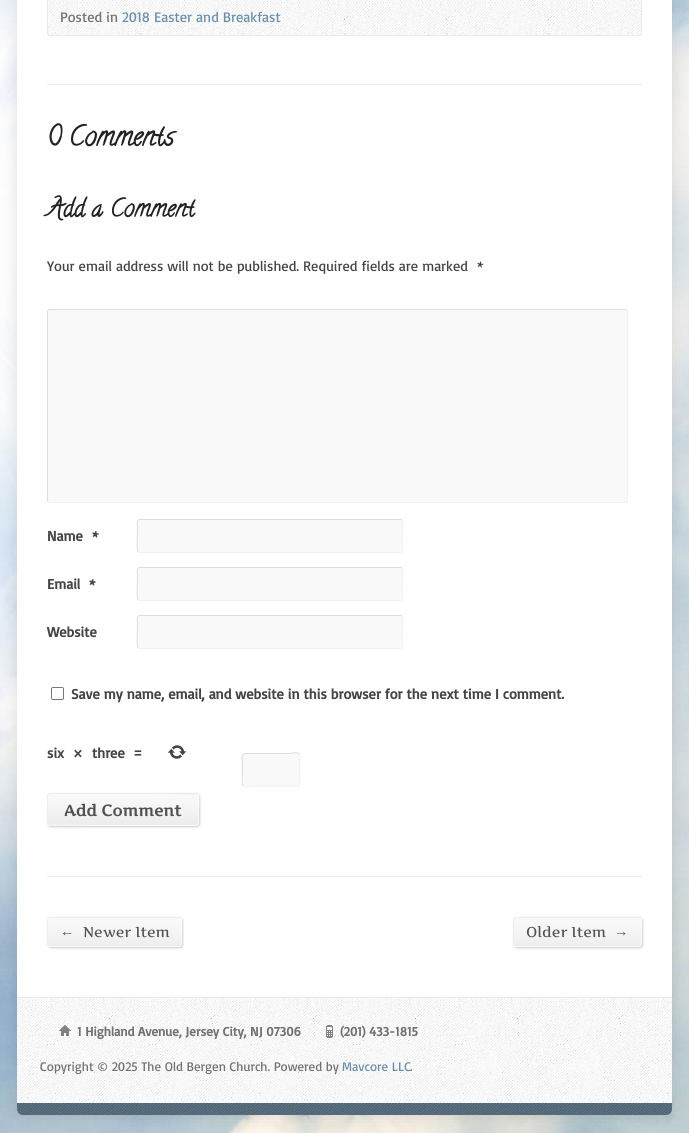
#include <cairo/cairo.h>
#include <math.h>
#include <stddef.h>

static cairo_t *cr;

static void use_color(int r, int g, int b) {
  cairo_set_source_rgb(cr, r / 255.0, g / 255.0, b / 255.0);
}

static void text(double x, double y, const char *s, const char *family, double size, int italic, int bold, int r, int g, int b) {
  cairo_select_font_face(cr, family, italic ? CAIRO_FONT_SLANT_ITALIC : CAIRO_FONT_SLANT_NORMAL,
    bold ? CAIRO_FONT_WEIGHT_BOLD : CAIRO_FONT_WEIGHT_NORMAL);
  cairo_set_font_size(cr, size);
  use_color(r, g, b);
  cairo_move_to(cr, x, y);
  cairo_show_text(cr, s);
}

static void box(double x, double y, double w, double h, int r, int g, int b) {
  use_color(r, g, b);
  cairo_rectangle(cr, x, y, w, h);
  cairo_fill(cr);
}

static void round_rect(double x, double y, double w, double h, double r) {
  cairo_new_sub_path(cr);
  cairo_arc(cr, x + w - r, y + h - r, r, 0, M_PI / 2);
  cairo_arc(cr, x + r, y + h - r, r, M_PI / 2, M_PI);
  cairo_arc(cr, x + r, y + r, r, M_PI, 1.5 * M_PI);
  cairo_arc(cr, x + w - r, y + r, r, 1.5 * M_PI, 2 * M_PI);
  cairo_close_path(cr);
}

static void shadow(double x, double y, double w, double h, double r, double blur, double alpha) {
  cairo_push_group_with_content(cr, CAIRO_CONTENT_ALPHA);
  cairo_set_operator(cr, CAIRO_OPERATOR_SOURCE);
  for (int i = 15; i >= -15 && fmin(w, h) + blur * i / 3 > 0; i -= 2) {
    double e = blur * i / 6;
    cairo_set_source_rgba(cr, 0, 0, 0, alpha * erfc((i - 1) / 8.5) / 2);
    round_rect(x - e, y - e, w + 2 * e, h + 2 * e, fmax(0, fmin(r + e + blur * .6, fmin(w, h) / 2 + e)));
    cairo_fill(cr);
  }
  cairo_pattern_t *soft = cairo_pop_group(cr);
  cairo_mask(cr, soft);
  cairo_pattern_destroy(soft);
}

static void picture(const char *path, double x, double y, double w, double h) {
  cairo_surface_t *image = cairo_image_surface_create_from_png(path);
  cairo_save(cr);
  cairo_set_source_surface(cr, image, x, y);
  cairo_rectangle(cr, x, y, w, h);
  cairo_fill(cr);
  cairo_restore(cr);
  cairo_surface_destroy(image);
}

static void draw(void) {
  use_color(255, 255, 255);
  cairo_paint(cr);
  picture("img_01.png", 0, 0, 689, 1133);
  use_color(0, 0, 0);
  shadow(17, -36, 655, 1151, 6, 10, 0.12);
  box(17, 0, 655, 997, 255, 255, 255);
  picture("img_02.png", 47, 0, 595, 36);
  round_rect(47.5, -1.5, 594, 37, 2.5);
  use_color(234, 234, 234);
  cairo_set_line_width(cr, 1);
  cairo_stroke(cr);
  box(47, 84, 595, 1, 234, 234, 234);
  use_color(249, 249, 249);
  round_rect(47, 309, 581, 194, 3);
  cairo_fill(cr);
  cairo_new_path(cr);
  cairo_move_to(cr, 627, 310);
  cairo_line_to(cr, 627.5, 312);
  cairo_line_to(cr, 627.5, 500);
  cairo_line_to(cr, 627, 502);
  cairo_line_to(cr, 625, 502.5);
  cairo_line_to(cr, 50, 502.5);
  cairo_line_to(cr, 48, 502);
  use_color(241, 241, 241);
  cairo_stroke(cr);
  cairo_new_path(cr);
  cairo_move_to(cr, 48, 502);
  cairo_line_to(cr, 47.5, 500);
  cairo_line_to(cr, 47.5, 312);
  cairo_line_to(cr, 48, 310);
  cairo_line_to(cr, 50, 309.5);
  cairo_line_to(cr, 625, 309.5);
  cairo_line_to(cr, 627, 310);
  use_color(221, 221, 221);
  cairo_stroke(cr);
  use_color(249, 249, 249);
  round_rect(137, 519, 266, 34, 3);
  cairo_fill(cr);
  cairo_new_path(cr);
  cairo_move_to(cr, 402, 520);
  cairo_curve_to(cr, 403.5, 522, 402.5, 537.5, 402.5, 540.5);
  cairo_line_to(cr, 402.5, 545.5);
  cairo_curve_to(cr, 402.5, 547, 403.5, 552.5, 400, 552.5);
  cairo_line_to(cr, 139.5, 552.5);
  cairo_line_to(cr, 138, 552);
  use_color(241, 241, 241);
  cairo_stroke(cr);
  cairo_new_path(cr);
  cairo_move_to(cr, 138, 552);
  cairo_curve_to(cr, 136.5, 550, 137.5, 534.5, 137.5, 531.5);
  cairo_line_to(cr, 137.5, 526.5);
  cairo_curve_to(cr, 137.5, 525, 136.5, 519.5, 140, 519.5);
  cairo_line_to(cr, 400.5, 519.5);
  cairo_line_to(cr, 402, 520);
  use_color(221, 221, 221);
  cairo_stroke(cr);
  use_color(249, 249, 249);
  round_rect(137, 567, 266, 34, 3);
  cairo_fill(cr);
  cairo_new_path(cr);
  cairo_move_to(cr, 402, 568);
  cairo_curve_to(cr, 403.5, 570, 402.5, 585.5, 402.5, 588.5);
  cairo_line_to(cr, 402.5, 593.5);
  cairo_curve_to(cr, 402.5, 595, 403.5, 600.5, 400, 600.5);
  cairo_line_to(cr, 139.5, 600.5);
  cairo_line_to(cr, 138, 600);
  use_color(241, 241, 241);
  cairo_stroke(cr);
  cairo_new_path(cr);
  cairo_move_to(cr, 138, 600);
  cairo_curve_to(cr, 136.5, 598, 137.5, 582.5, 137.5, 579.5);
  cairo_line_to(cr, 137.5, 574.5);
  cairo_curve_to(cr, 137.5, 573, 136.5, 567.5, 140, 567.5);
  cairo_line_to(cr, 400.5, 567.5);
  cairo_line_to(cr, 402, 568);
  use_color(221, 221, 221);
  cairo_stroke(cr);
  use_color(249, 249, 249);
  round_rect(137, 615, 266, 34, 3);
  cairo_fill(cr);
  cairo_new_path(cr);
  cairo_move_to(cr, 402, 616);
  cairo_curve_to(cr, 403.5, 618, 402.5, 633.5, 402.5, 636.5);
  cairo_line_to(cr, 402.5, 641.5);
  cairo_curve_to(cr, 402.5, 643, 403.5, 648.5, 400, 648.5);
  cairo_line_to(cr, 139.5, 648.5);
  cairo_line_to(cr, 138, 648);
  use_color(241, 241, 241);
  cairo_stroke(cr);
  cairo_new_path(cr);
  cairo_move_to(cr, 138, 648);
  cairo_curve_to(cr, 136.5, 646, 137.5, 630.5, 137.5, 627.5);
  cairo_line_to(cr, 137.5, 622.5);
  cairo_curve_to(cr, 137.5, 621, 136.5, 615.5, 140, 615.5);
  cairo_line_to(cr, 400.5, 615.5);
  cairo_line_to(cr, 402, 616);
  use_color(221, 221, 221);
  cairo_stroke(cr);
  round_rect(51.5, 687.5, 12, 12, 1.5);
  use_color(118, 118, 118);
  cairo_stroke(cr);
  use_color(249, 249, 249);
  round_rect(242, 753, 58, 34, 3);
  cairo_fill(cr);
  cairo_new_path(cr);
  cairo_move_to(cr, 299, 754);
  cairo_curve_to(cr, 300.5, 756, 299.5, 767.5, 299.5, 770);
  cairo_curve_to(cr, 299.5, 787.5, 303.5, 786.5, 288.5, 786.5);
  cairo_line_to(cr, 253.5, 786.5);
  cairo_curve_to(cr, 250, 786.5, 245.5, 788.5, 243, 786);
  use_color(241, 241, 241);
  cairo_stroke(cr);
  cairo_new_path(cr);
  cairo_move_to(cr, 243, 786);
  cairo_curve_to(cr, 241.5, 784, 242.5, 772.5, 242.5, 770);
  cairo_curve_to(cr, 242.5, 752.5, 238.5, 753.5, 253.5, 753.5);
  cairo_line_to(cr, 288.5, 753.5);
  cairo_curve_to(cr, 292, 753.5, 296.5, 751.5, 299, 754);
  use_color(221, 221, 221);
  cairo_stroke(cr);
  picture("img_03.png", 167, 745, 20, 14);
  use_color(0, 0, 0);
  shadow(48, 794, 152, 33, 3, 1, 0.2);
  use_color(249, 249, 249);
  round_rect(47, 793, 152, 33, 3);
  cairo_fill(cr);
  picture("img_04.png", 47, 793, 152, 33);
  cairo_new_path(cr);
  cairo_move_to(cr, 198, 794);
  cairo_curve_to(cr, 199.5, 796, 198.5, 807, 198.5, 809.5);
  cairo_line_to(cr, 198.5, 818.5);
  cairo_curve_to(cr, 198.5, 820.5, 199.5, 825.5, 196, 825.5);
  cairo_line_to(cr, 98.5, 825.5);
  cairo_line_to(cr, 49, 825);
  cairo_line_to(cr, 48, 825);
  cairo_stroke(cr);
  cairo_new_path(cr);
  cairo_move_to(cr, 48, 825);
  cairo_curve_to(cr, 46.5, 823, 47.5, 812, 47.5, 809.5);
  cairo_line_to(cr, 47.5, 800.5);
  cairo_curve_to(cr, 47.5, 798.5, 46.5, 793.5, 50, 793.5);
  cairo_line_to(cr, 147.5, 793.5);
  cairo_line_to(cr, 197, 794);
  cairo_line_to(cr, 198, 794);
  use_color(238, 238, 238);
  cairo_stroke(cr);
  box(47, 876, 595, 1, 234, 234, 234);
  use_color(0, 0, 0);
  shadow(48, 918, 135, 30, 3, 1, 0.2);
  use_color(249, 249, 249);
  round_rect(47, 917, 135, 30, 3);
  cairo_fill(cr);
  picture("img_05.png", 47, 917, 135, 30);
  cairo_new_path(cr);
  cairo_move_to(cr, 181, 918);
  cairo_curve_to(cr, 182.5, 920, 181.5, 929.5, 181.5, 932);
  cairo_line_to(cr, 181.5, 940);
  cairo_curve_to(cr, 181.5, 942, 182.5, 946.5, 179, 946.5);
  cairo_line_to(cr, 50, 946.5);
  cairo_line_to(cr, 48, 946);
  cairo_stroke(cr);
  cairo_new_path(cr);
  cairo_move_to(cr, 48, 946);
  cairo_curve_to(cr, 46.5, 944, 47.5, 934.5, 47.5, 932);
  cairo_line_to(cr, 47.5, 924);
  cairo_curve_to(cr, 47.5, 922, 46.5, 917.5, 50, 917.5);
  cairo_line_to(cr, 179, 917.5);
  cairo_line_to(cr, 181, 918);
  use_color(238, 238, 238);
  cairo_stroke(cr);
  use_color(0, 0, 0);
  shadow(514, 918, 129, 30, 3, 1, 0.2);
  use_color(249, 249, 249);
  round_rect(513, 917, 129, 30, 3);
  cairo_fill(cr);
  picture("img_06.png", 513, 917, 129, 30);
  cairo_new_path(cr);
  cairo_move_to(cr, 641, 918);
  cairo_curve_to(cr, 642.5, 920, 641.5, 929.5, 641.5, 932);
  cairo_line_to(cr, 641.5, 940);
  cairo_curve_to(cr, 641.5, 942, 642.5, 946.5, 639, 946.5);
  cairo_line_to(cr, 516, 946.5);
  cairo_line_to(cr, 514, 946);
  cairo_stroke(cr);
  cairo_new_path(cr);
  cairo_move_to(cr, 514, 946);
  cairo_curve_to(cr, 512.5, 944, 513.5, 934.5, 513.5, 932);
  cairo_line_to(cr, 513.5, 924);
  cairo_curve_to(cr, 513.5, 922, 512.5, 917.5, 516, 917.5);
  cairo_line_to(cr, 639, 917.5);
  cairo_line_to(cr, 641, 918);
  use_color(238, 238, 238);
  cairo_stroke(cr);
  picture("img_07.png", 17, 998, 655, 105);
  box(17, 997, 655, 1, 234, 234, 234);
  picture("img_08.png", 59, 1025, 12, 11);
  picture("img_09.png", 326, 1025, 7, 13);
  use_color(106, 143, 171);
  cairo_new_path(cr);
  cairo_move_to(cr, 17, 1103);
  cairo_line_to(cr, 672, 1103);
  cairo_line_to(cr, 672, 1109);
  cairo_curve_to(cr, 672, 1112.5, 669.5, 1115, 666, 1115);
  cairo_line_to(cr, 23, 1115);
  cairo_curve_to(cr, 19.5, 1115, 17, 1112.5, 17, 1109);
  cairo_close_path(cr);
  cairo_fill(cr);
  picture("img_10.png", 17, 1103, 655, 12);
  text(60, 22, "Posted in", "Basic", 14.4, 0, 0, 113, 113, 113);
  text(122, 22, "2018 Easter and Breakfast", "Basic", 14.4, 0, 0, 106, 143, 171);
  text(47, 145, "0 Comments", "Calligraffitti", 27.5, 0, 1, 34, 34, 34);
  text(47, 216, "Add a Comment", "Calligraffitti", 24.5, 0, 1, 34, 34, 34);
  text(47, 271, "Your email address will not be published. Required fields are marked", "Basic", 14.4, 0, 0, 68, 68, 68);
  text(477, 271, "*", "Basic", 14.4, 0, 0, 68, 68, 68);
  text(47, 541, "Name", "Basic", 14.4, 0, 1, 68, 68, 68);
  text(92, 541, "*", "Basic", 14.4, 0, 1, 68, 68, 68);
  text(47, 589, "Email", "Basic", 14.4, 0, 1, 68, 68, 68);
  text(89, 589, "*", "Basic", 14.4, 0, 1, 68, 68, 68);
  text(47, 637, "Website", "Basic", 14.4, 0, 1, 68, 68, 68);
  text(71, 699, "Save my name, email, and website in this browser for the next time I comment.", "Basic", 14.4, 0, 1, 68, 68, 68);
  text(47, 758, "six", "Basic", 14.4, 0, 1, 68, 68, 68);
  text(73, 758, "×", "Basic", 14.4, 0, 1, 68, 68, 68);
  text(92, 758, "three", "Basic", 14.4, 0, 1, 68, 68, 68);
  text(133, 758, "=", "Basic", 14.4, 0, 1, 68, 68, 68);
  text(64, 816, "Add Comment", "Artifika", 15.75, 0, 1, 81, 81, 81);
  text(60, 936, "←", "Liberation Serif", 14.4, 0, 0, 81, 81, 81);
  text(83, 937, "Newer Item", "Artifika", 14.4, 0, 0, 81, 81, 81);
  text(526, 937, "Older Item", "Artifika", 14.4, 0, 0, 81, 81, 81);
  text(614, 936, "→", "Liberation Serif", 14.4, 0, 0, 81, 81, 81);
  text(77, 1036, "1 Highland Avenue, Jersey City, NJ 07306", "Basic", 13, 0, 1, 113, 113, 113);
  text(340, 1036, "(201) 433-1815", "Basic", 13, 0, 1, 113, 113, 113);
  text(40, 1071, "Copyright © 2025 The Old Bergen Church. Powered by", "Basic", 13, 0, 0, 113, 113, 113);
  text(342, 1071, "Mavcore LLC", "Basic", 13, 0, 0, 106, 143, 171);
  text(410, 1071, ".", "Basic", 13, 0, 0, 113, 113, 113);
}

int main(void) {
  cairo_surface_t *surface = cairo_image_surface_create(CAIRO_FORMAT_RGB24, 689, 1133);
  cr = cairo_create(surface);
  cairo_font_options_t *options = cairo_font_options_create();
  cairo_font_options_set_hint_metrics(options, CAIRO_HINT_METRICS_OFF);
  cairo_font_options_set_hint_style(options, CAIRO_HINT_STYLE_NONE);
  cairo_set_font_options(cr, options);
  cairo_set_miter_limit(cr, 4);
  draw();
  cairo_surface_write_to_png(surface, "out.png");
  cairo_font_options_destroy(options);
  cairo_destroy(cr);
  cairo_surface_destroy(surface);
  return 0;
}
